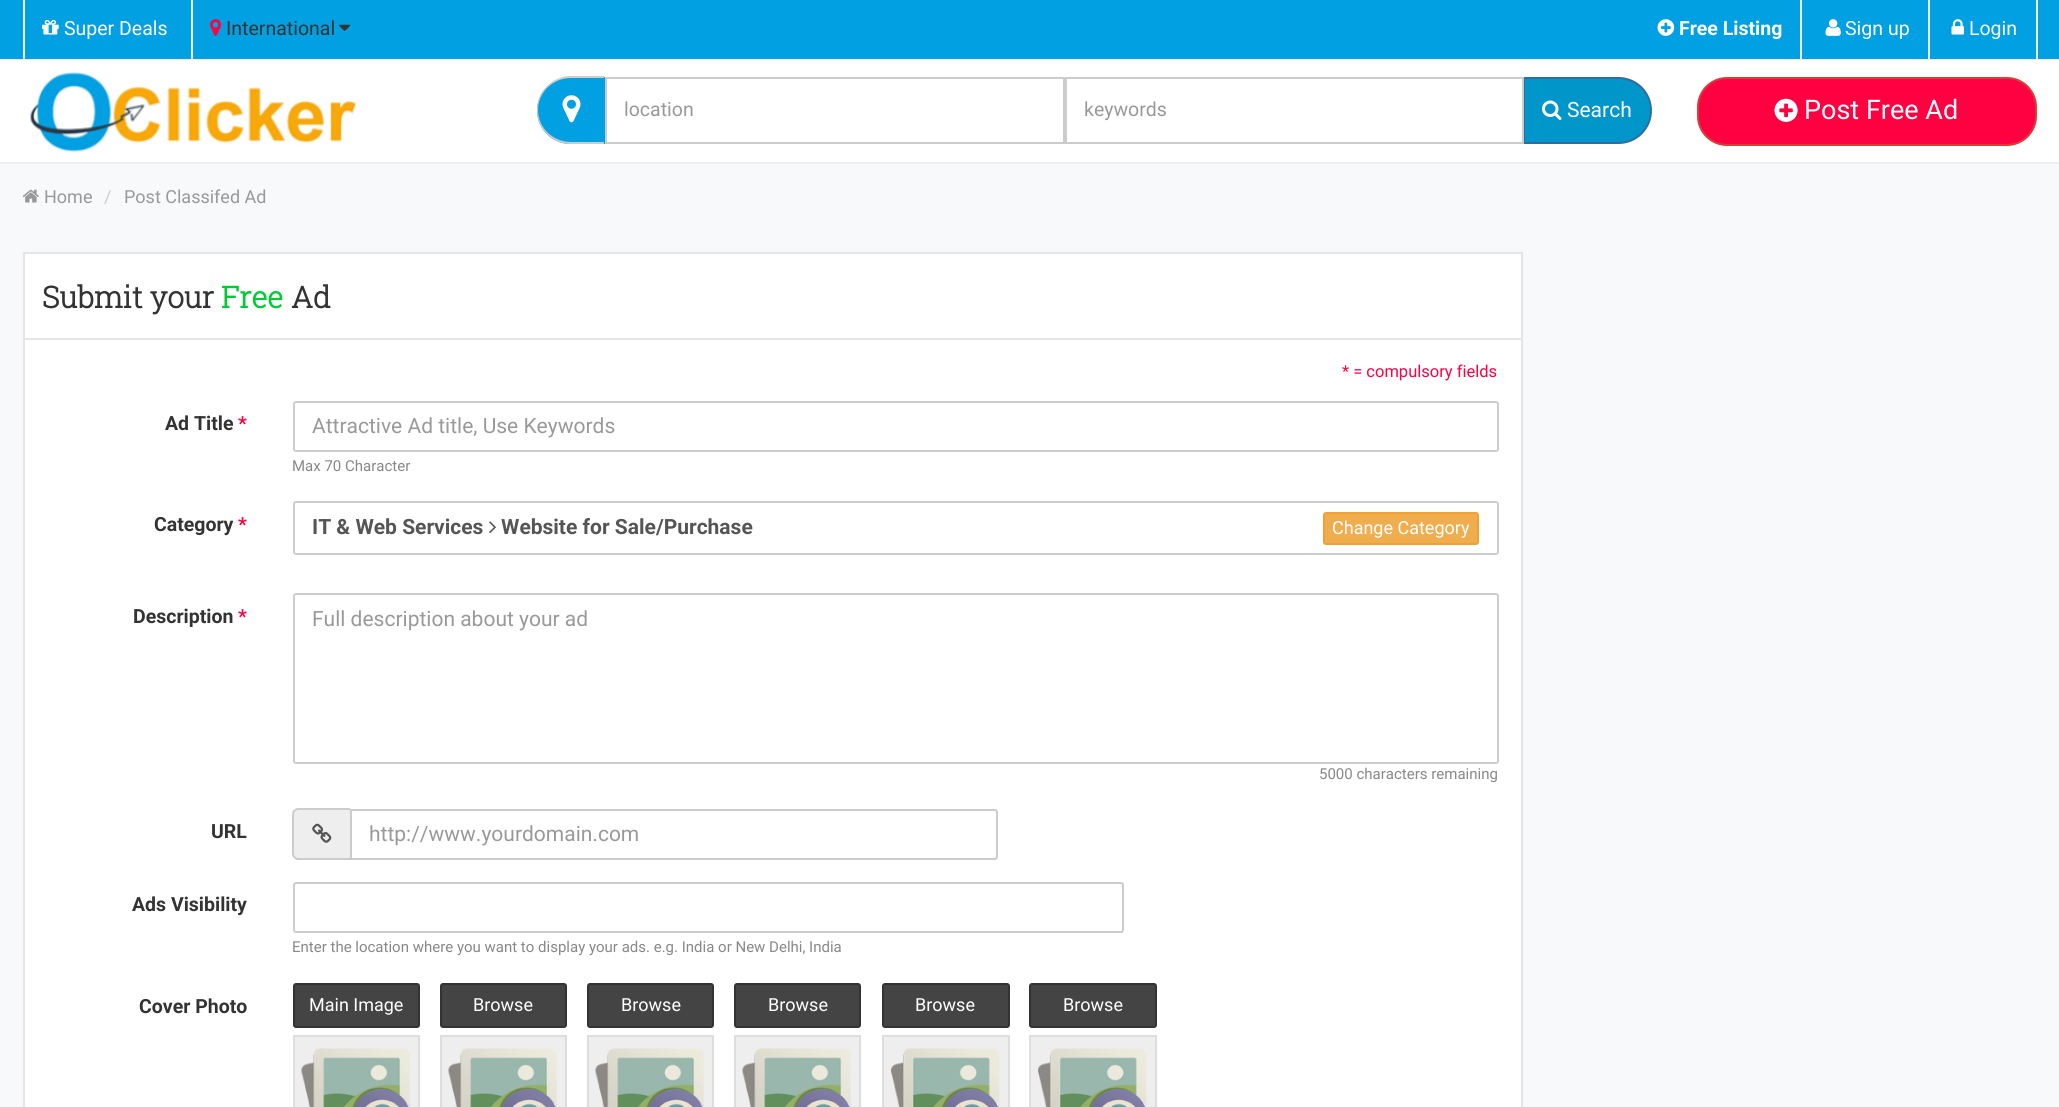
#include <cairo/cairo.h>
#include <math.h>
#include <stddef.h>

static cairo_t *cr;

static void use_color(int r, int g, int b) {
  cairo_set_source_rgb(cr, r / 255.0, g / 255.0, b / 255.0);
}

static void text(double x, double y, const char *s, const char *family, double size, int italic, int bold, int r, int g, int b) {
  cairo_select_font_face(cr, family, italic ? CAIRO_FONT_SLANT_ITALIC : CAIRO_FONT_SLANT_NORMAL,
    bold ? CAIRO_FONT_WEIGHT_BOLD : CAIRO_FONT_WEIGHT_NORMAL);
  cairo_set_font_size(cr, size);
  use_color(r, g, b);
  cairo_move_to(cr, x, y);
  cairo_show_text(cr, s);
}

static void box(double x, double y, double w, double h, int r, int g, int b) {
  use_color(r, g, b);
  cairo_rectangle(cr, x, y, w, h);
  cairo_fill(cr);
}

static void round_rect(double x, double y, double w, double h, double r) {
  cairo_new_sub_path(cr);
  cairo_arc(cr, x + w - r, y + h - r, r, 0, M_PI / 2);
  cairo_arc(cr, x + r, y + h - r, r, M_PI / 2, M_PI);
  cairo_arc(cr, x + r, y + r, r, M_PI, 1.5 * M_PI);
  cairo_arc(cr, x + w - r, y + r, r, 1.5 * M_PI, 2 * M_PI);
  cairo_close_path(cr);
}

static void picture(const char *path, double x, double y, double w, double h) {
  cairo_surface_t *image = cairo_image_surface_create_from_png(path);
  cairo_save(cr);
  cairo_set_source_surface(cr, image, x, y);
  cairo_rectangle(cr, x, y, w, h);
  cairo_fill(cr);
  cairo_restore(cr);
  cairo_surface_destroy(image);
}

static void draw(void) {
  use_color(248, 249, 250);
  cairo_paint(cr);
  box(0, 0, 2059, 59, 1, 160, 226);
  box(0, 59, 2059, 1, 238, 238, 238);
  box(23, 0, 2, 59, 238, 238, 238);
  picture("img_01.png", 42, 19, 17, 16);
  box(191, 0, 2, 59, 238, 238, 238);
  picture("img_02.png", 210, 19, 12, 17);
  picture("img_03.png", 339, 24, 12, 7);
  box(1800, 0, 2, 59, 238, 238, 238);
  picture("img_04.png", 1657, 19, 18, 17);
  box(1928, 0, 2, 59, 238, 238, 238);
  picture("img_05.png", 1825, 19, 16, 17);
  box(2036, 0, 2, 59, 238, 238, 238);
  picture("img_06.png", 1951, 19, 14, 16);
  box(0, 60, 2059, 102, 255, 255, 255);
  box(0, 162, 2059, 2, 238, 238, 238);
  picture("img_07.png", 30, 72, 327, 81);
  use_color(1, 160, 226);
  cairo_new_path(cr);
  cairo_move_to(cr, 570.5, 77);
  cairo_line_to(cr, 605, 77);
  cairo_line_to(cr, 605, 144);
  cairo_line_to(cr, 570.5, 144);
  cairo_curve_to(cr, 552, 144, 537, 129, 537, 110.5);
  cairo_curve_to(cr, 537, 92, 552, 77, 570.5, 77);
  cairo_close_path(cr);
  cairo_fill(cr);
  use_color(204, 204, 204);
  cairo_set_fill_rule(cr, CAIRO_FILL_RULE_EVEN_ODD);
  cairo_new_path(cr);
  cairo_move_to(cr, 571, 76);
  cairo_line_to(cr, 604, 76);
  cairo_line_to(cr, 604, 144);
  cairo_line_to(cr, 571, 144);
  cairo_curve_to(cr, 552, 144, 537, 129, 537, 110);
  cairo_curve_to(cr, 537, 92, 552, 76, 571, 76);
  cairo_close_path(cr);
  cairo_move_to(cr, 571, 78);
  cairo_line_to(cr, 604, 78);
  cairo_line_to(cr, 604, 142);
  cairo_line_to(cr, 571, 142);
  cairo_curve_to(cr, 553, 142, 538, 128, 538, 110);
  cairo_curve_to(cr, 538, 92, 553, 78, 571, 78);
  cairo_close_path(cr);
  cairo_fill(cr);
  picture("img_08.png", 562, 95, 19, 28);
  cairo_rectangle(cr, 606, 78, 458, 65);
  cairo_stroke(cr);
  use_color(0, 150, 202);
  cairo_new_path(cr);
  cairo_move_to(cr, 1524, 78);
  cairo_line_to(cr, 1618.5, 78);
  cairo_curve_to(cr, 1636.5, 78, 1651, 92.5, 1651, 110.5);
  cairo_curve_to(cr, 1651, 128.5, 1636.5, 143, 1618.5, 143);
  cairo_line_to(cr, 1524, 143);
  cairo_close_path(cr);
  cairo_fill_preserve(cr);
  use_color(46, 109, 164);
  cairo_stroke(cr);
  cairo_rectangle(cr, 1066, 78, 457, 65);
  use_color(204, 204, 204);
  cairo_stroke(cr);
  picture("img_09.png", 1542, 100, 20, 20);
  use_color(255, 0, 65);
  round_rect(1698, 78, 338, 67, 29);
  cairo_fill_preserve(cr);
  use_color(212, 63, 58);
  cairo_stroke(cr);
  picture("img_10.png", 1774, 98, 24, 24);
  picture("img_11.png", 22, 189, 17, 14);
  use_color(255, 255, 255);
  cairo_rectangle(cr, 24, 253, 1498, 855);
  cairo_fill_preserve(cr);
  use_color(229, 229, 229);
  cairo_stroke(cr);
  box(24, 338, 1497, 2, 229, 229, 229);
  round_rect(294, 402, 1204, 49, 2);
  use_color(204, 204, 204);
  cairo_stroke(cr);
  round_rect(294, 502, 1204, 52, 2);
  cairo_stroke(cr);
  picture("img_12.png", 489, 521, 7, 12);
  use_color(240, 173, 78);
  round_rect(1324, 513, 154, 31, 2);
  cairo_fill_preserve(cr);
  use_color(238, 162, 54);
  cairo_stroke(cr);
  round_rect(294, 594, 1204, 169, 2);
  use_color(204, 204, 204);
  cairo_stroke(cr);
  use_color(238, 238, 238);
  cairo_new_path(cr);
  cairo_move_to(cr, 299, 809);
  cairo_line_to(cr, 350, 809);
  cairo_line_to(cr, 350, 860);
  cairo_line_to(cr, 299, 860);
  cairo_curve_to(cr, 295.5, 860, 293, 857.5, 293, 854);
  cairo_line_to(cr, 293, 815);
  cairo_curve_to(cr, 293, 811.5, 295.5, 809, 299, 809);
  cairo_close_path(cr);
  cairo_fill(cr);
  use_color(204, 204, 204);
  cairo_new_path(cr);
  cairo_move_to(cr, 298, 808);
  cairo_line_to(cr, 350, 808);
  cairo_line_to(cr, 350, 860);
  cairo_line_to(cr, 298, 860);
  cairo_curve_to(cr, 295, 860, 292, 857, 292, 854);
  cairo_line_to(cr, 292, 814);
  cairo_curve_to(cr, 292, 811, 295, 808, 298, 808);
  cairo_close_path(cr);
  cairo_move_to(cr, 298, 810);
  cairo_line_to(cr, 350, 810);
  cairo_line_to(cr, 350, 858);
  cairo_line_to(cr, 298, 858);
  cairo_curve_to(cr, 296, 858, 294, 856, 294, 854);
  cairo_line_to(cr, 294, 814);
  cairo_curve_to(cr, 294, 812, 296, 810, 298, 810);
  cairo_close_path(cr);
  cairo_fill(cr);
  picture("img_13.png", 312, 823, 20, 20);
  cairo_new_path(cr);
  cairo_move_to(cr, 351, 810);
  cairo_line_to(cr, 995, 810);
  cairo_curve_to(cr, 996, 810, 997, 811, 997, 812);
  cairo_line_to(cr, 997, 857);
  cairo_curve_to(cr, 997, 858, 996, 859, 995, 859);
  cairo_line_to(cr, 351, 859);
  cairo_close_path(cr);
  cairo_stroke(cr);
  round_rect(294, 883, 829, 49, 2);
  cairo_stroke(cr);
  use_color(68, 68, 68);
  round_rect(294, 984, 125, 43, 2);
  cairo_fill_preserve(cr);
  use_color(51, 51, 51);
  cairo_stroke(cr);
  use_color(238, 238, 238);
  cairo_rectangle(cr, 294, 1036, 125, 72);
  cairo_fill_preserve(cr);
  use_color(221, 221, 221);
  cairo_stroke(cr);
  picture("img_14.png", 301, 1048, 109, 59);
  use_color(68, 68, 68);
  round_rect(441, 984, 125, 43, 2);
  cairo_fill_preserve(cr);
  use_color(51, 51, 51);
  cairo_stroke(cr);
  use_color(238, 238, 238);
  cairo_rectangle(cr, 441, 1036, 125, 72);
  cairo_fill_preserve(cr);
  use_color(221, 221, 221);
  cairo_stroke(cr);
  picture("img_15.png", 448, 1048, 109, 59);
  use_color(68, 68, 68);
  round_rect(588, 984, 125, 43, 2);
  cairo_fill_preserve(cr);
  use_color(51, 51, 51);
  cairo_stroke(cr);
  use_color(238, 238, 238);
  cairo_rectangle(cr, 588, 1036, 125, 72);
  cairo_fill_preserve(cr);
  use_color(221, 221, 221);
  cairo_stroke(cr);
  picture("img_14.png", 595, 1048, 109, 59);
  use_color(68, 68, 68);
  round_rect(735, 984, 125, 43, 2);
  cairo_fill_preserve(cr);
  use_color(51, 51, 51);
  cairo_stroke(cr);
  use_color(238, 238, 238);
  cairo_rectangle(cr, 735, 1036, 125, 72);
  cairo_fill_preserve(cr);
  use_color(221, 221, 221);
  cairo_stroke(cr);
  picture("img_14.png", 742, 1048, 109, 59);
  use_color(68, 68, 68);
  round_rect(883, 984, 126, 43, 2);
  cairo_fill_preserve(cr);
  use_color(51, 51, 51);
  cairo_stroke(cr);
  use_color(238, 238, 238);
  cairo_rectangle(cr, 883, 1036, 126, 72);
  cairo_fill_preserve(cr);
  use_color(221, 221, 221);
  cairo_stroke(cr);
  picture("img_16.png", 891, 1048, 109, 59);
  use_color(68, 68, 68);
  round_rect(1030, 984, 126, 43, 2);
  cairo_fill_preserve(cr);
  use_color(51, 51, 51);
  cairo_stroke(cr);
  use_color(238, 238, 238);
  cairo_rectangle(cr, 1030, 1036, 126, 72);
  cairo_fill_preserve(cr);
  use_color(221, 221, 221);
  cairo_stroke(cr);
  picture("img_16.png", 1038, 1048, 109, 59);
  text(64, 35, "Super Deals", "Roboto", 19.5, 0, 0, 255, 255, 255);
  text(226, 35, "International", "Roboto", 19.5, 0, 0, 51, 51, 51);
  text(1679, 35, "Free Listing", "Roboto", 19.5, 0, 1, 255, 255, 255);
  text(1845, 35, "Sign up", "Roboto", 19.5, 0, 0, 255, 255, 255);
  text(1969, 35, "Login", "Roboto", 19.5, 0, 0, 255, 255, 255);
  text(624, 116, "location", "Roboto", 19.5, 0, 0, 153, 153, 153);
  text(1084, 116, "keywords", "Roboto", 19.5, 0, 0, 153, 153, 153);
  text(1567, 117, "Search", "Roboto", 21, 0, 0, 255, 255, 255);
  text(1804, 119, "Post Free Ad", "Roboto", 27, 0, 0, 255, 255, 255);
  text(44, 203, "Home", "Roboto", 18, 0, 0, 153, 153, 153);
  text(104, 203, "/", "Roboto", 18, 0, 0, 204, 204, 204);
  text(124, 203, "Post Classifed Ad", "Roboto", 18, 0, 0, 153, 153, 153);
  text(42, 308, "Submit your", "Roboto Slab", 30, 0, 1, 51, 51, 51);
  text(221, 308, "Free", "Roboto Slab", 30, 0, 1, 0, 202, 52);
  text(291, 308, "Ad", "Roboto Slab", 30, 0, 1, 51, 51, 51);
  text(1342, 377, "* = compulsory fields", "Roboto", 16.5, 0, 0, 255, 0, 65);
  text(165, 430, "Ad Title", "Roboto", 19.5, 0, 1, 51, 51, 51);
  text(238, 430, "*", "Roboto", 19.5, 0, 1, 255, 0, 65);
  text(312, 433, "Attractive Ad title, Use Keywords", "Roboto", 21, 0, 0, 153, 153, 153);
  text(292, 471, "Max 70 Character", "Roboto", 15, 0, 0, 136, 136, 136);
  text(154, 531, "Category", "Roboto", 19.5, 0, 1, 51, 51, 51);
  text(238, 531, "*", "Roboto", 19.5, 0, 1, 255, 0, 65);
  text(312, 534, "IT & Web Services", "Roboto", 21, 0, 1, 85, 85, 85);
  text(501, 534, "Website for Sale/Purchase", "Roboto", 21, 0, 1, 85, 85, 85);
  text(1332, 534, "Change Category", "Roboto", 18, 0, 0, 255, 255, 255);
  text(133, 623, "Description", "Roboto", 19.5, 0, 1, 51, 51, 51);
  text(238, 623, "*", "Roboto", 19.5, 0, 1, 255, 0, 65);
  text(312, 626, "Full description about your ad", "Roboto", 21, 0, 0, 153, 153, 153);
  text(1319, 779, "5000 characters remaining", "Roboto", 15, 0, 0, 136, 136, 136);
  text(211, 838, "URL", "Roboto", 19.5, 0, 1, 51, 51, 51);
  text(369, 841, "http://www.yourdomain.com", "Roboto", 21, 0, 0, 153, 153, 153);
  text(132, 911, "Ads Visibility", "Roboto", 19.5, 0, 1, 51, 51, 51);
  text(292, 952, "Enter the location where you want to display your ads. e.g. India or New Delhi, India", "Roboto", 15, 0, 0, 136, 136, 136);
  text(139, 1013, "Cover Photo", "Roboto", 19.5, 0, 1, 51, 51, 51);
  text(309, 1011, "Main Image", "Roboto", 18, 0, 0, 255, 255, 255);
  text(473, 1011, "Browse", "Roboto", 18, 0, 0, 255, 255, 255);
  text(621, 1011, "Browse", "Roboto", 18, 0, 0, 255, 255, 255);
  text(768, 1011, "Browse", "Roboto", 18, 0, 0, 255, 255, 255);
  text(915, 1011, "Browse", "Roboto", 18, 0, 0, 255, 255, 255);
  text(1063, 1011, "Browse", "Roboto", 18, 0, 0, 255, 255, 255);
}

int main(void) {
  cairo_surface_t *surface = cairo_image_surface_create(CAIRO_FORMAT_RGB24, 2059, 1107);
  cr = cairo_create(surface);
  cairo_font_options_t *options = cairo_font_options_create();
  cairo_font_options_set_hint_metrics(options, CAIRO_HINT_METRICS_OFF);
  cairo_font_options_set_hint_style(options, CAIRO_HINT_STYLE_NONE);
  cairo_set_font_options(cr, options);
  cairo_set_miter_limit(cr, 4);
  draw();
  cairo_surface_write_to_png(surface, "out.png");
  cairo_font_options_destroy(options);
  cairo_destroy(cr);
  cairo_surface_destroy(surface);
  return 0;
}
